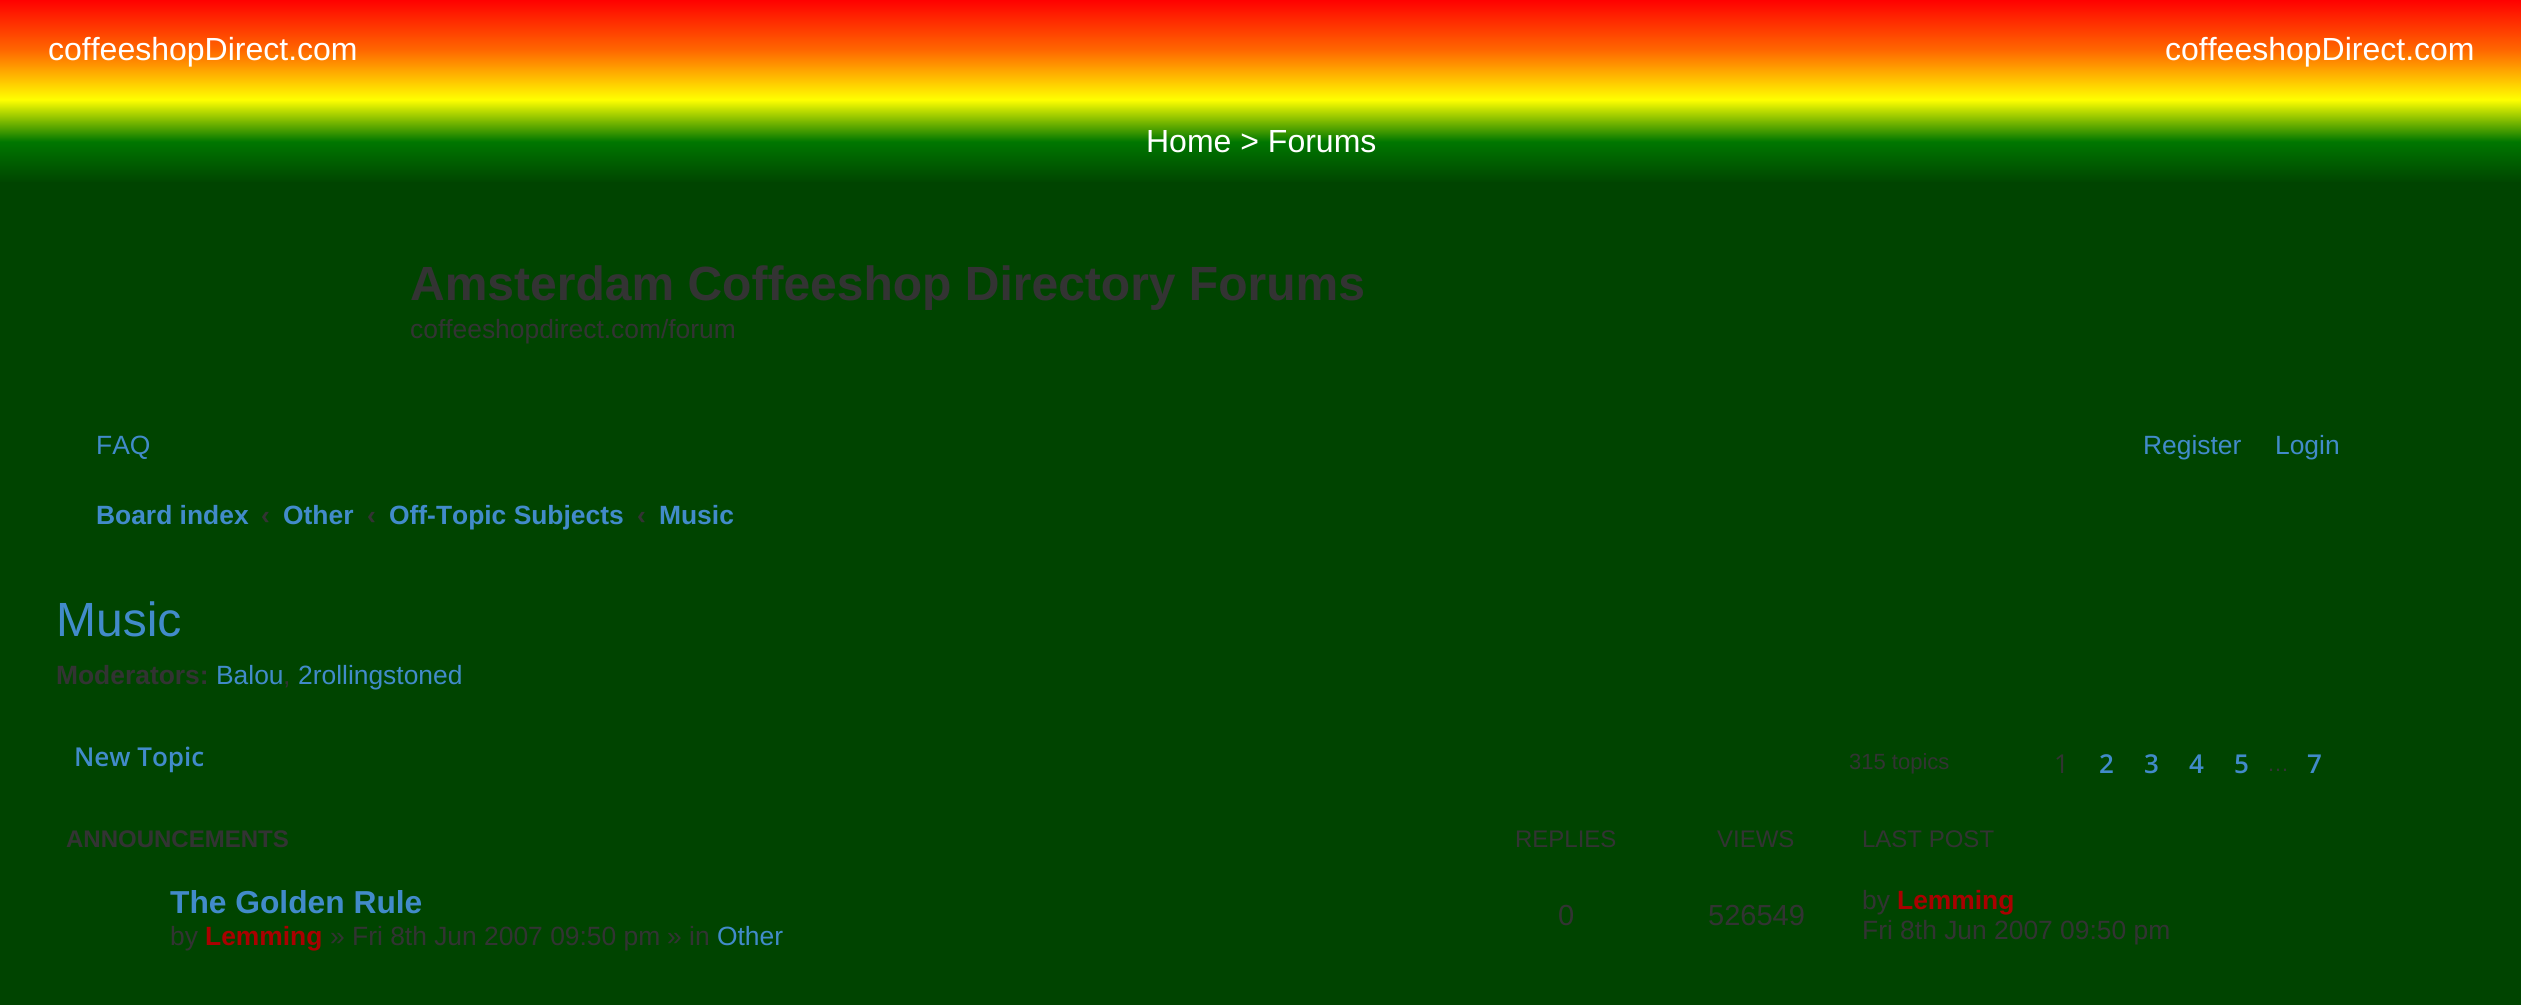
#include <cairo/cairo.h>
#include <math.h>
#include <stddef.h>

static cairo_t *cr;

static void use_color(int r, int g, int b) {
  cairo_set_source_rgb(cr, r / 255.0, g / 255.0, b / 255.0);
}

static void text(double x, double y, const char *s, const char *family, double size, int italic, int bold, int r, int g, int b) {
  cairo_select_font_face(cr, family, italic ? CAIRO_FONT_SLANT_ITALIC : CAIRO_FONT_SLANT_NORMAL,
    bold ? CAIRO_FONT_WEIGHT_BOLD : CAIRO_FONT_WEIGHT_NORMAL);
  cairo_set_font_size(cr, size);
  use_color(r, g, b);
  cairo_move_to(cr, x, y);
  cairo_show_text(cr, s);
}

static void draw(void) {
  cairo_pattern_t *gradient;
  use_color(0, 68, 0);
  cairo_paint(cr);
  gradient = cairo_pattern_create_linear(1261, 0, 1261, 100);
  cairo_pattern_add_color_stop_rgba(gradient, 0, 1, 0, 0, 1);
  cairo_pattern_add_color_stop_rgba(gradient, 0.5, 1, 0.4, 0, 1);
  cairo_pattern_add_color_stop_rgba(gradient, 1, 1, 1, 0, 1);
  cairo_set_source(cr, gradient);
  cairo_pattern_destroy(gradient);
  cairo_rectangle(cr, 0, 0, 2521, 100);
  cairo_fill(cr);
  gradient = cairo_pattern_create_linear(1261, 100, 1261, 184);
  cairo_pattern_add_color_stop_rgba(gradient, 0, 1, 1, 0, 1);
  cairo_pattern_add_color_stop_rgba(gradient, 0.5, 0, 0.467, 0, 1);
  cairo_pattern_add_color_stop_rgba(gradient, 1, 0, 0.267, 0, 1);
  cairo_set_source(cr, gradient);
  cairo_pattern_destroy(gradient);
  cairo_rectangle(cr, 0, 100, 2521, 82);
  cairo_fill(cr);
  text(48, 60, "coffeeshopDirect.com", "Liberation Sans", 32, 0, 0, 255, 255, 255);
  text(2165, 60, "coffeeshopDirect.com", "Liberation Sans", 32, 0, 0, 255, 255, 255);
  text(1146, 152, "Home > Forums", "Liberation Sans", 32, 0, 0, 255, 255, 255);
  text(410, 300, "Amsterdam Coffeeshop Directory Forums", "Liberation Sans", 48, 0, 1, 51, 51, 51);
  text(410, 338, "coffeeshopdirect.com/forum", "Liberation Sans", 26.4, 0, 0, 51, 51, 51);
  text(96, 454, "FAQ", "Liberation Sans", 26.4, 0, 0, 66, 139, 202);
  text(2143, 454, "Register", "Liberation Sans", 26.4, 0, 0, 66, 139, 202);
  text(2275, 454, "Login", "Liberation Sans", 26.4, 0, 0, 66, 139, 202);
  text(96, 524, "Board index", "Liberation Sans", 26.4, 0, 1, 66, 139, 202);
  text(261, 524, "‹", "Liberation Sans", 26.4, 0, 1, 51, 51, 51);
  text(283, 524, "Other", "Liberation Sans", 26.4, 0, 1, 66, 139, 202);
  text(367, 524, "‹", "Liberation Sans", 26.4, 0, 1, 51, 51, 51);
  text(389, 524, "Off-Topic Subjects", "Liberation Sans", 26.4, 0, 1, 66, 139, 202);
  text(637, 524, "‹", "Liberation Sans", 26.4, 0, 1, 51, 51, 51);
  text(659, 524, "Music", "Liberation Sans", 26.4, 0, 1, 66, 139, 202);
  text(56, 636, "Music", "Liberation Sans", 48, 0, 0, 66, 139, 202);
  text(56, 684, "Moderators:", "Liberation Sans", 26.4, 0, 1, 51, 51, 51);
  text(216, 684, "Balou", "Liberation Sans", 26.4, 0, 0, 66, 139, 202);
  text(283, 684, ",", "Liberation Sans", 26.4, 0, 0, 51, 51, 51);
  text(298, 684, "2rollingstoned", "Liberation Sans", 26.4, 0, 0, 66, 139, 202);
  text(74, 766, "New Topic", "Open Sans SemiBold", 26, 0, 0, 66, 139, 202);
  text(1849, 769, "315 topics", "Liberation Sans", 22, 0, 0, 51, 51, 51);
  text(2054, 773, "1", "Open Sans", 26, 0, 0, 51, 51, 51);
  text(2099, 773, "2", "Open Sans SemiBold", 26, 0, 0, 66, 139, 202);
  text(2144, 773, "3", "Open Sans SemiBold", 26, 0, 0, 66, 139, 202);
  text(2189, 773, "4", "Open Sans SemiBold", 26, 0, 0, 66, 139, 202);
  text(2234, 773, "5", "Open Sans SemiBold", 26, 0, 0, 66, 139, 202);
  text(2267, 771, "…", "Liberation Sans", 22, 0, 0, 51, 51, 51);
  text(2307, 773, "7", "Open Sans SemiBold", 26, 0, 0, 66, 139, 202);
  text(66, 847, "ANNOUNCEMENTS", "Liberation Sans", 24, 0, 1, 51, 51, 51);
  text(1515, 847, "REPLIES", "Liberation Sans", 24, 0, 0, 51, 51, 51);
  text(1717, 847, "VIEWS", "Liberation Sans", 24, 0, 0, 51, 51, 51);
  text(1862, 847, "LAST POST", "Liberation Sans", 24, 0, 0, 51, 51, 51);
  text(170, 913, "The Golden Rule", "Liberation Sans", 31.75, 0, 1, 66, 139, 202);
  text(170, 945, "by", "Liberation Sans", 26.4, 0, 0, 51, 51, 51);
  text(205, 945, "Lemming", "Liberation Sans", 26.4, 0, 1, 170, 0, 0);
  text(330, 945, "» Fri 8th Jun 2007 09:50 pm", "Liberation Sans", 26.4, 0, 0, 51, 51, 51);
  text(667, 945, "» in", "Liberation Sans", 26.4, 0, 0, 51, 51, 51);
  text(717, 945, "Other", "Liberation Sans", 26.4, 0, 0, 66, 139, 202);
  text(1558, 925, "0", "Liberation Sans", 29, 0, 0, 51, 51, 51);
  text(1708, 925, "526549", "Liberation Sans", 29, 0, 0, 51, 51, 51);
  text(1862, 909, "by", "Liberation Sans", 26.4, 0, 0, 51, 51, 51);
  text(1897, 909, "Lemming", "Liberation Sans", 26.4, 0, 1, 170, 0, 0);
  text(1862, 939, "Fri 8th Jun 2007 09:50 pm", "Liberation Sans", 26.4, 0, 0, 51, 51, 51);
}

int main(void) {
  cairo_surface_t *surface = cairo_image_surface_create(CAIRO_FORMAT_RGB24, 2521, 1005);
  cr = cairo_create(surface);
  cairo_font_options_t *options = cairo_font_options_create();
  cairo_font_options_set_hint_metrics(options, CAIRO_HINT_METRICS_OFF);
  cairo_font_options_set_hint_style(options, CAIRO_HINT_STYLE_NONE);
  cairo_set_font_options(cr, options);
  cairo_set_miter_limit(cr, 4);
  draw();
  cairo_surface_write_to_png(surface, "out.png");
  cairo_font_options_destroy(options);
  cairo_destroy(cr);
  cairo_surface_destroy(surface);
  return 0;
}
